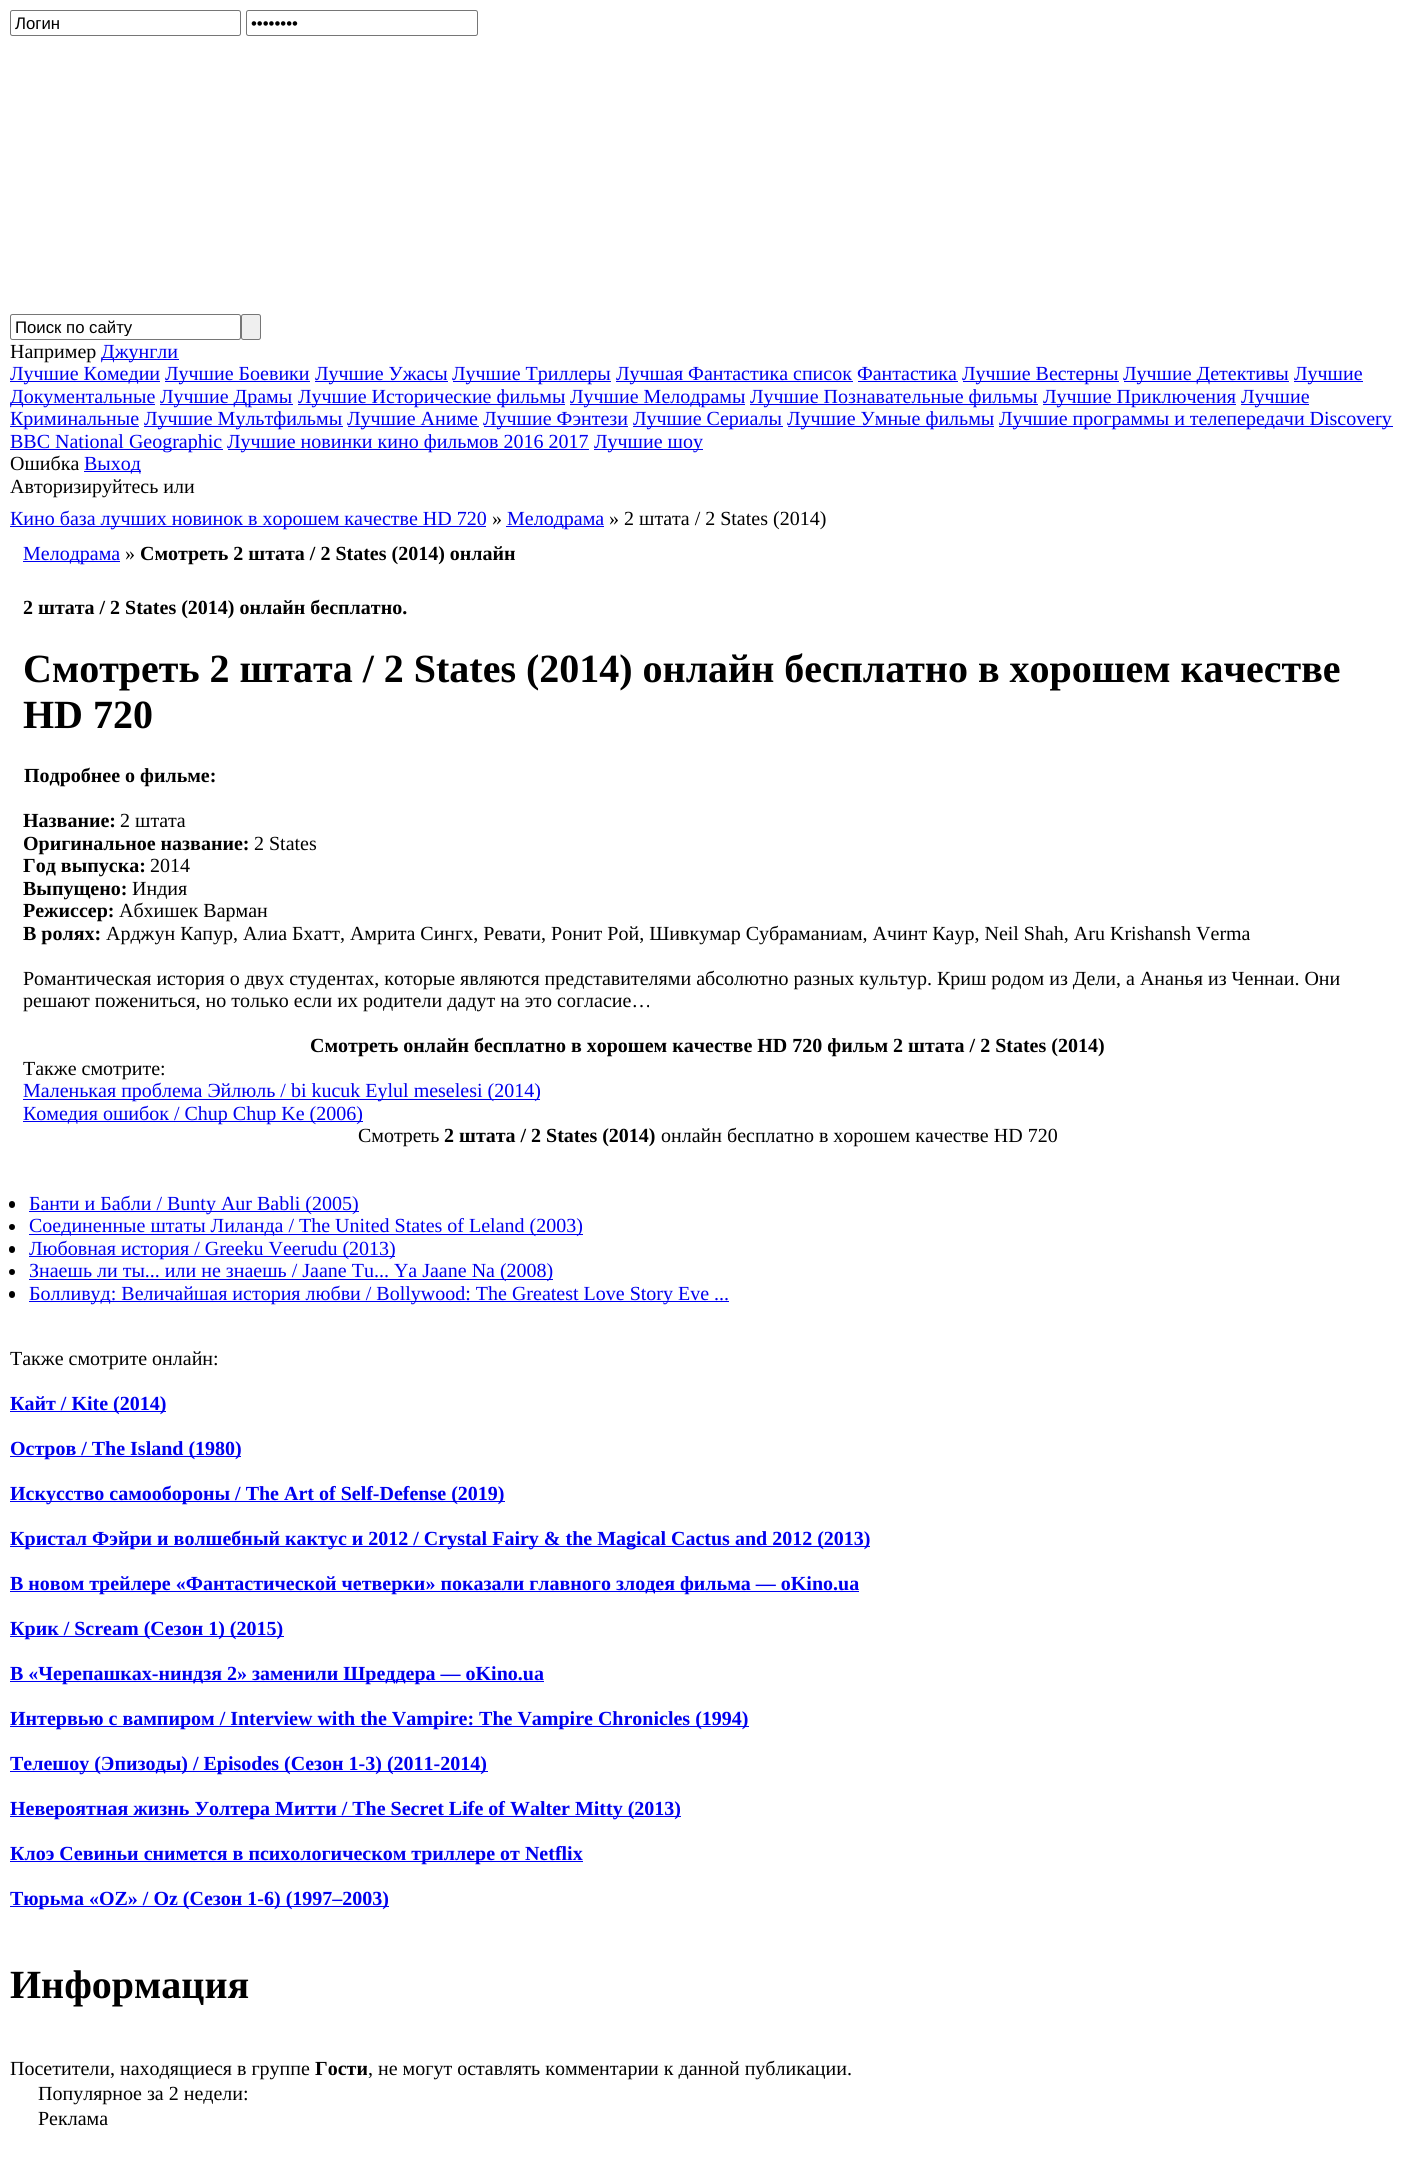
#include <cairo/cairo.h>
#include <math.h>
#include <stddef.h>

static cairo_t *cr;

static void use_color(int r, int g, int b) {
  cairo_set_source_rgb(cr, r / 255.0, g / 255.0, b / 255.0);
}

static void text(double x, double y, const char *s, const char *family, double size, int italic, int bold, int r, int g, int b) {
  cairo_select_font_face(cr, family, italic ? CAIRO_FONT_SLANT_ITALIC : CAIRO_FONT_SLANT_NORMAL,
    bold ? CAIRO_FONT_WEIGHT_BOLD : CAIRO_FONT_WEIGHT_NORMAL);
  cairo_set_font_size(cr, size);
  use_color(r, g, b);
  cairo_move_to(cr, x, y);
  cairo_show_text(cr, s);
}

static void box(double x, double y, double w, double h, int r, int g, int b) {
  use_color(r, g, b);
  cairo_rectangle(cr, x, y, w, h);
  cairo_fill(cr);
}

static void round_rect(double x, double y, double w, double h, double r) {
  cairo_new_sub_path(cr);
  cairo_arc(cr, x + w - r, y + h - r, r, 0, M_PI / 2);
  cairo_arc(cr, x + r, y + h - r, r, M_PI / 2, M_PI);
  cairo_arc(cr, x + r, y + r, r, M_PI, 1.5 * M_PI);
  cairo_arc(cr, x + w - r, y + r, r, 1.5 * M_PI, 2 * M_PI);
  cairo_close_path(cr);
}

static void draw(void) {
  use_color(255, 255, 255);
  cairo_paint(cr);
  round_rect(10.5, 10.5, 230, 25, 2);
  use_color(118, 118, 118);
  cairo_set_line_width(cr, 1);
  cairo_stroke(cr);
  round_rect(246.5, 10.5, 231, 25, 2);
  cairo_stroke(cr);
  round_rect(10.5, 314.5, 230, 25, 2);
  cairo_stroke(cr);
  use_color(239, 239, 239);
  round_rect(241.5, 314.5, 19, 25, 2);
  cairo_fill_preserve(cr);
  use_color(118, 118, 118);
  cairo_stroke(cr);
  box(101, 359, 78, 1, 0, 0, 238);
  box(10, 381, 150, 1, 0, 0, 238);
  box(165, 381, 145, 1, 0, 0, 238);
  box(315, 381, 133, 1, 0, 0, 238);
  box(453, 381, 158, 1, 0, 0, 238);
  box(616, 381, 237, 1, 0, 0, 238);
  box(963, 381, 156, 1, 0, 0, 238);
  box(1124, 381, 165, 1, 0, 0, 238);
  box(1294, 381, 69, 1, 0, 0, 238);
  box(858, 381, 100, 1, 0, 0, 238);
  box(10, 404, 145, 1, 0, 0, 238);
  box(160, 404, 133, 1, 0, 0, 238);
  box(298, 404, 267, 1, 0, 0, 238);
  box(570, 404, 175, 1, 0, 0, 238);
  box(750, 404, 288, 1, 0, 0, 238);
  box(1043, 404, 193, 1, 0, 0, 238);
  box(1241, 404, 68, 1, 0, 0, 238);
  box(10, 426, 129, 1, 0, 0, 238);
  box(144, 426, 199, 1, 0, 0, 238);
  box(348, 426, 131, 1, 0, 0, 238);
  box(484, 426, 144, 1, 0, 0, 238);
  box(633, 426, 150, 1, 0, 0, 238);
  box(788, 426, 206, 1, 0, 0, 238);
  box(999, 426, 394, 1, 0, 0, 238);
  box(10, 449, 213, 1, 0, 0, 238);
  box(228, 449, 361, 1, 0, 0, 238);
  box(594, 449, 109, 1, 0, 0, 238);
  box(84, 471, 57, 1, 0, 0, 238);
  box(10, 526, 476, 1, 0, 0, 238);
  box(506, 526, 98, 1, 0, 0, 238);
  box(23, 561, 97, 1, 0, 0, 238);
  box(23, 1099, 517, 1, 0, 0, 238);
  box(23, 1121, 340, 1, 0, 0, 238);
  use_color(0, 0, 0);
  round_rect(9, 1201, 6, 7, 3);
  cairo_fill(cr);
  box(29, 1211, 330, 1, 0, 0, 238);
  use_color(0, 0, 0);
  cairo_arc(cr, 12, 1227, 3, 0, 2 * M_PI);
  cairo_fill(cr);
  box(29, 1234, 554, 1, 0, 0, 238);
  use_color(0, 0, 0);
  round_rect(9, 1246, 6, 7, 3);
  cairo_fill(cr);
  box(29, 1256, 366, 1, 0, 0, 238);
  use_color(0, 0, 0);
  cairo_arc(cr, 12, 1272, 3, 0, 2 * M_PI);
  cairo_fill(cr);
  box(29, 1279, 524, 1, 0, 0, 238);
  use_color(0, 0, 0);
  round_rect(9, 1291, 6, 7, 3);
  cairo_fill(cr);
  box(29, 1301, 700, 1, 0, 0, 238);
  box(10, 1411, 156, 1, 0, 0, 238);
  box(10, 1456, 231, 1, 0, 0, 238);
  box(10, 1501, 495, 1, 0, 0, 238);
  box(10, 1546, 860, 1, 0, 0, 238);
  box(10, 1591, 849, 1, 0, 0, 238);
  box(10, 1636, 274, 1, 0, 0, 238);
  box(10, 1681, 534, 1, 0, 0, 238);
  box(10, 1726, 739, 1, 0, 0, 238);
  box(10, 1771, 478, 1, 0, 0, 238);
  box(10, 1816, 671, 1, 0, 0, 238);
  box(10, 1861, 573, 1, 0, 0, 238);
  box(10, 1906, 379, 1, 0, 0, 238);
  text(15, 29, "Логин", "Liberation Sans", 16.75, 0, 0, 0, 0, 0);
  text(251, 29, "••••••••", "Liberation Sans", 16.75, 0, 0, 0, 0, 0);
  cairo_save(cr);
  cairo_rectangle(cr, 15, 318, 221, 18);
  cairo_clip(cr);
  text(15, 333, "Поиск по сайту", "Liberation Sans", 16.75, 0, 0, 0, 0, 0);
  cairo_restore(cr);
  text(10, 358, "Например", "Liberation Serif", 20, 0, 0, 0, 0, 0);
  text(101, 358, "Джунгли", "Liberation Serif", 20, 0, 0, 0, 0, 238);
  text(10, 380, "Лучшие Комедии", "Liberation Serif", 20, 0, 0, 0, 0, 238);
  text(165, 380, "Лучшие Боевики", "Liberation Serif", 20, 0, 0, 0, 0, 238);
  text(315, 380, "Лучшие Ужасы", "Liberation Serif", 20, 0, 0, 0, 0, 238);
  text(452, 380, "Лучшие Триллеры", "Liberation Serif", 20, 0, 0, 0, 0, 238);
  text(616, 380, "Лучшая Фантастика список Фантастика", "Liberation Serif", 20, 0, 0, 0, 0, 238);
  text(962, 380, "Лучшие Вестерны", "Liberation Serif", 20, 0, 0, 0, 0, 238);
  text(1123, 380, "Лучшие Детективы", "Liberation Serif", 20, 0, 0, 0, 0, 238);
  text(1294, 380, "Лучшие", "Liberation Serif", 20, 0, 0, 0, 0, 238);
  text(10, 403, "Документальные", "Liberation Serif", 20, 0, 0, 0, 0, 238);
  text(160, 403, "Лучшие Драмы", "Liberation Serif", 20, 0, 0, 0, 0, 238);
  text(298, 403, "Лучшие Исторические фильмы", "Liberation Serif", 20, 0, 0, 0, 0, 238);
  text(570, 403, "Лучшие Мелодрамы", "Liberation Serif", 20, 0, 0, 0, 0, 238);
  text(750, 403, "Лучшие Познавательные фильмы", "Liberation Serif", 20, 0, 0, 0, 0, 238);
  text(1043, 403, "Лучшие Приключения", "Liberation Serif", 20, 0, 0, 0, 0, 238);
  text(1241, 403, "Лучшие", "Liberation Serif", 20, 0, 0, 0, 0, 238);
  text(10, 425, "Криминальные", "Liberation Serif", 20, 0, 0, 0, 0, 238);
  text(144, 425, "Лучшие Мультфильмы", "Liberation Serif", 20, 0, 0, 0, 0, 238);
  text(347, 425, "Лучшие Аниме", "Liberation Serif", 20, 0, 0, 0, 0, 238);
  text(483, 425, "Лучшие Фэнтези", "Liberation Serif", 20, 0, 0, 0, 0, 238);
  text(633, 425, "Лучшие Сериалы", "Liberation Serif", 20, 0, 0, 0, 0, 238);
  text(787, 425, "Лучшие Умные фильмы", "Liberation Serif", 20, 0, 0, 0, 0, 238);
  text(999, 425, "Лучшие программы и телепередачи Discovery", "Liberation Serif", 20, 0, 0, 0, 0, 238);
  text(10, 448, "BBC National Geographic", "Liberation Serif", 20, 0, 0, 0, 0, 238);
  text(227, 448, "Лучшие новинки кино фильмов 2016 2017", "Liberation Serif", 20, 0, 0, 0, 0, 238);
  text(594, 448, "Лучшие шоу", "Liberation Serif", 20, 0, 0, 0, 0, 238);
  text(10, 470, "Ошибка", "Liberation Serif", 20, 0, 0, 0, 0, 0);
  text(84, 470, "Выход", "Liberation Serif", 20, 0, 0, 0, 0, 238);
  text(10, 493, "Авторизируйтесь или", "Liberation Serif", 20, 0, 0, 0, 0, 0);
  text(10, 525, "Кино база лучших новинок в хорошем качестве HD 720", "Liberation Serif", 20, 0, 0, 0, 0, 238);
  text(492, 525, "»", "Liberation Serif", 20, 0, 0, 0, 0, 0);
  text(507, 525, "Мелодрама", "Liberation Serif", 20, 0, 0, 0, 0, 238);
  text(609, 525, "» 2 штата / 2 States (2014)", "Liberation Serif", 20, 0, 0, 0, 0, 0);
  text(23, 560, "Мелодрама", "Liberation Serif", 20, 0, 0, 0, 0, 238);
  text(125, 560, "»", "Liberation Serif", 20, 0, 0, 0, 0, 0);
  text(140, 560, "Смотреть 2 штата / 2 States (2014) онлайн", "Liberation Serif", 20, 0, 1, 0, 0, 0);
  text(23, 614, "2 штата / 2 States (2014) онлайн бесплатно.", "Liberation Serif", 20, 0, 1, 0, 0, 0);
  text(23, 682, "Смотреть 2 штата / 2 States (2014) онлайн бесплатно в хорошем качестве", "Liberation Serif", 40, 0, 1, 0, 0, 0);
  text(23, 728, "HD 720", "Liberation Serif", 40, 0, 1, 0, 0, 0);
  text(24, 782, "Подробнее о фильме:", "Liberation Serif", 20, 0, 1, 0, 0, 0);
  text(23, 827, "Название:", "Liberation Serif", 20, 0, 1, 0, 0, 0);
  text(120, 827, "2 штата", "Liberation Serif", 20, 0, 0, 0, 0, 0);
  text(23, 850, "Оригинальное название:", "Liberation Serif", 20, 0, 1, 0, 0, 0);
  text(254, 850, "2 States", "Liberation Serif", 20, 0, 0, 0, 0, 0);
  text(23, 872, "Год выпуска:", "Liberation Serif", 20, 0, 1, 0, 0, 0);
  text(150, 872, "2014", "Liberation Serif", 20, 0, 0, 0, 0, 0);
  text(23, 895, "Выпущено:", "Liberation Serif", 20, 0, 1, 0, 0, 0);
  text(132, 895, "Индия", "Liberation Serif", 20, 0, 0, 0, 0, 0);
  text(23, 917, "Режиссер:", "Liberation Serif", 20, 0, 1, 0, 0, 0);
  text(119, 917, "Абхишек Варман", "Liberation Serif", 20, 0, 0, 0, 0, 0);
  text(23, 940, "В ролях:", "Liberation Serif", 20, 0, 1, 0, 0, 0);
  text(106, 940, "Арджун Капур, Алиа Бхатт, Амрита Сингх, Ревати, Ронит Рой, Шивкумар Субраманиам, Ачинт Каур, Neil Shah, Aru Krishansh Verma", "Liberation Serif", 20, 0, 0, 0, 0, 0);
  text(23, 985, "Романтическая история о двух студентах, которые являются представителями абсолютно разных культур. Криш родом из Дели, а Ананья из Ченнаи. Они", "Liberation Serif", 20, 0, 0, 0, 0, 0);
  text(23, 1007, "решают пожениться, но только если их родители дадут на это согласие…", "Liberation Serif", 20, 0, 0, 0, 0, 0);
  text(310, 1052, "Смотреть онлайн бесплатно в хорошем качестве HD 720 фильм 2 штата / 2 States (2014)", "Liberation Serif", 20, 0, 1, 0, 0, 0);
  text(23, 1075, "Также смотрите:", "Liberation Serif", 20, 0, 0, 0, 0, 0);
  text(23, 1097, "Маленькая проблема Эйлюль / bi kucuk Eylul meselesi (2014)", "Liberation Serif", 20, 0, 0, 0, 0, 238);
  text(23, 1120, "Комедия ошибок / Chup Chup Ke (2006)", "Liberation Serif", 20, 0, 0, 0, 0, 238);
  text(358, 1142, "Смотреть", "Liberation Serif", 20, 0, 0, 0, 0, 0);
  text(444, 1142, "2 штата / 2 States (2014)", "Liberation Serif", 20, 0, 1, 0, 0, 0);
  text(661, 1142, "онлайн бесплатно в хорошем качестве HD 720", "Liberation Serif", 20, 0, 0, 0, 0, 0);
  text(29, 1210, "Банти и Бабли / Bunty Aur Babli (2005)", "Liberation Serif", 20, 0, 0, 0, 0, 238);
  text(29, 1232, "Соединенные штаты Лиланда / The United States of Leland (2003)", "Liberation Serif", 20, 0, 0, 0, 0, 238);
  text(29, 1255, "Любовная история / Greeku Veerudu (2013)", "Liberation Serif", 20, 0, 0, 0, 0, 238);
  text(29, 1277, "Знаешь ли ты... или не знаешь / Jaane Tu... Ya Jaane Na (2008)", "Liberation Serif", 20, 0, 0, 0, 0, 238);
  text(29, 1300, "Болливуд: Величайшая история любви / Bollywood: The Greatest Love Story Eve ...", "Liberation Serif", 20, 0, 0, 0, 0, 238);
  text(10, 1365, "Также смотрите онлайн:", "Liberation Serif", 20, 0, 0, 0, 0, 0);
  text(10, 1410, "Кайт / Kite (2014)", "Liberation Serif", 20, 0, 1, 0, 0, 238);
  text(10, 1455, "Остров / The Island (1980)", "Liberation Serif", 20, 0, 1, 0, 0, 238);
  text(10, 1500, "Искусство самообороны / The Art of Self-Defense (2019)", "Liberation Serif", 20, 0, 1, 0, 0, 238);
  text(10, 1545, "Кристал Фэйри и волшебный кактус и 2012 / Crystal Fairy & the Magical Cactus and 2012 (2013)", "Liberation Serif", 20, 0, 1, 0, 0, 238);
  text(10, 1590, "В новом трейлере «Фантастической четверки» показали главного злодея фильма — oKino.ua", "Liberation Serif", 20, 0, 1, 0, 0, 238);
  text(10, 1635, "Крик / Scream (Сезон 1) (2015)", "Liberation Serif", 20, 0, 1, 0, 0, 238);
  text(10, 1680, "В «Черепашках-ниндзя 2» заменили Шреддера — oKino.ua", "Liberation Serif", 20, 0, 1, 0, 0, 238);
  text(10, 1725, "Интервью с вампиром / Interview with the Vampire: The Vampire Chronicles (1994)", "Liberation Serif", 20, 0, 1, 0, 0, 238);
  text(10, 1770, "Телешоу (Эпизоды) / Episodes (Сезон 1-3) (2011-2014)", "Liberation Serif", 20, 0, 1, 0, 0, 238);
  text(10, 1815, "Невероятная жизнь Уолтера Митти / The Secret Life of Walter Mitty (2013)", "Liberation Serif", 20, 0, 1, 0, 0, 238);
  text(10, 1860, "Клоэ Севиньи снимется в психологическом триллере от Netflix", "Liberation Serif", 20, 0, 1, 0, 0, 238);
  text(10, 1905, "Тюрьма «ОZ» / Oz (Сезон 1-6) (1997–2003)", "Liberation Serif", 20, 0, 1, 0, 0, 238);
  text(10, 1998, "Информация", "Liberation Serif", 40, 0, 1, 0, 0, 0);
  text(10, 2075, "Посетители, находящиеся в группе", "Liberation Serif", 20, 0, 0, 0, 0, 0);
  text(315, 2075, "Гости", "Liberation Serif", 20, 0, 1, 0, 0, 0);
  text(368, 2075, ", не могут оставлять комментарии к данной публикации.", "Liberation Serif", 20, 0, 0, 0, 0, 0);
  text(38, 2100, "Популярное за 2 недели:", "Liberation Serif", 20, 0, 0, 0, 0, 0);
  text(38, 2125, "Реклама", "Liberation Serif", 20, 0, 0, 0, 0, 0);
}

int main(void) {
  cairo_surface_t *surface = cairo_image_surface_create(CAIRO_FORMAT_RGB24, 1415, 2158);
  cr = cairo_create(surface);
  cairo_font_options_t *options = cairo_font_options_create();
  cairo_font_options_set_hint_metrics(options, CAIRO_HINT_METRICS_OFF);
  cairo_font_options_set_hint_style(options, CAIRO_HINT_STYLE_NONE);
  cairo_set_font_options(cr, options);
  cairo_set_miter_limit(cr, 4);
  draw();
  cairo_surface_write_to_png(surface, "out.png");
  cairo_font_options_destroy(options);
  cairo_destroy(cr);
  cairo_surface_destroy(surface);
  return 0;
}
